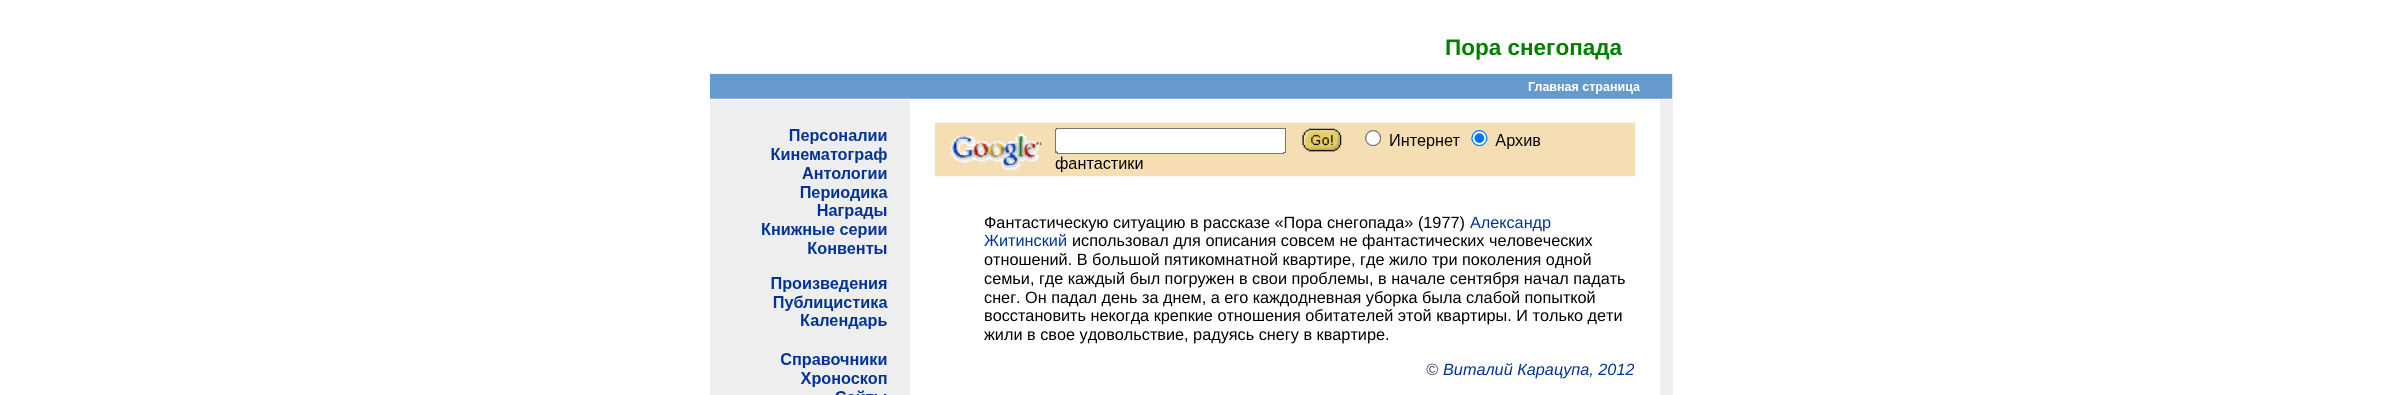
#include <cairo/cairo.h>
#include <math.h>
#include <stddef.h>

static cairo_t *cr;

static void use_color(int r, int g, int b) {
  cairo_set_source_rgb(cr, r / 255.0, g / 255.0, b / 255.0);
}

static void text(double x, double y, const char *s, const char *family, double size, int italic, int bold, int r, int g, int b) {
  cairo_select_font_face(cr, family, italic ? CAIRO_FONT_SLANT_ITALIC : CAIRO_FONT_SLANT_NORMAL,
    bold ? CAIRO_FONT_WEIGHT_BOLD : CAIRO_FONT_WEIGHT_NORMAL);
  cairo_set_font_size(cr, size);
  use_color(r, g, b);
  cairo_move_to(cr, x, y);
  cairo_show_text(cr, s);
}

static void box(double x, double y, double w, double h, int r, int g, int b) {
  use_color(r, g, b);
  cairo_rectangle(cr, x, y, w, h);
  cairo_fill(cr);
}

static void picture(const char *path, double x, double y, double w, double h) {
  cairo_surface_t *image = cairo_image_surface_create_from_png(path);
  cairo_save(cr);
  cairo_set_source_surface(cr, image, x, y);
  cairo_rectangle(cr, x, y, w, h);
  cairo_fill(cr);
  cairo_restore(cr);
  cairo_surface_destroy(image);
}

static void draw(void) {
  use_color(255, 255, 255);
  cairo_paint(cr);
  picture("img_01.png", 710, 73, 963, 26);
  box(710, 100, 200, 295, 238, 238, 238);
  box(1660, 100, 13, 295, 238, 238, 238);
  picture("img_02.png", 762, 129, 126, 266);
  picture("img_03.png", 935, 122, 700, 55);
  text(1445, 55, "Пора снегопада", "Liberation Sans", 22.5, 0, 1, 0, 128, 0);
  text(984, 228, "Фантастическую ситуацию в рассказе «Пора снегопада» (1977)", "Liberation Sans", 16.25, 0, 0, 0, 0, 0);
  text(1470, 228, "Александр", "Liberation Sans", 16.25, 0, 0, 0, 51, 153);
  text(984, 246, "Житинский", "Liberation Sans", 16.25, 0, 0, 0, 51, 153);
  text(1072, 246, "использовал для описания совсем не фантастических человеческих", "Liberation Sans", 16.25, 0, 0, 0, 0, 0);
  text(984, 265, "отношений. В большой пятикомнатной квартире, где жило три поколения одной", "Liberation Sans", 16.25, 0, 0, 0, 0, 0);
  text(984, 284, "семьи, где каждый был погружен в свои проблемы, в начале сентября начал падать", "Liberation Sans", 16.25, 0, 0, 0, 0, 0);
  text(984, 303, "снег. Он падал день за днем, а его каждодневная уборка была слабой попыткой", "Liberation Sans", 16.25, 0, 0, 0, 0, 0);
  text(984, 321, "восстановить некогда крепкие отношения обитателей этой квартиры. И только дети", "Liberation Sans", 16.25, 0, 0, 0, 0, 0);
  text(984, 340, "жили в свое удовольствие, радуясь снегу в квартире.", "Liberation Sans", 16.25, 0, 0, 0, 0, 0);
  text(1426, 375, "©", "Liberation Sans", 16.25, 1, 0, 51, 59, 108);
  text(1443, 375, "Виталий Карацупа, 2012", "Liberation Sans", 16.25, 1, 0, 0, 51, 153);
}

int main(void) {
  cairo_surface_t *surface = cairo_image_surface_create(CAIRO_FORMAT_RGB24, 2381, 395);
  cr = cairo_create(surface);
  cairo_font_options_t *options = cairo_font_options_create();
  cairo_font_options_set_hint_metrics(options, CAIRO_HINT_METRICS_OFF);
  cairo_font_options_set_hint_style(options, CAIRO_HINT_STYLE_NONE);
  cairo_set_font_options(cr, options);
  cairo_set_miter_limit(cr, 4);
  draw();
  cairo_surface_write_to_png(surface, "out.png");
  cairo_font_options_destroy(options);
  cairo_destroy(cr);
  cairo_surface_destroy(surface);
  return 0;
}
